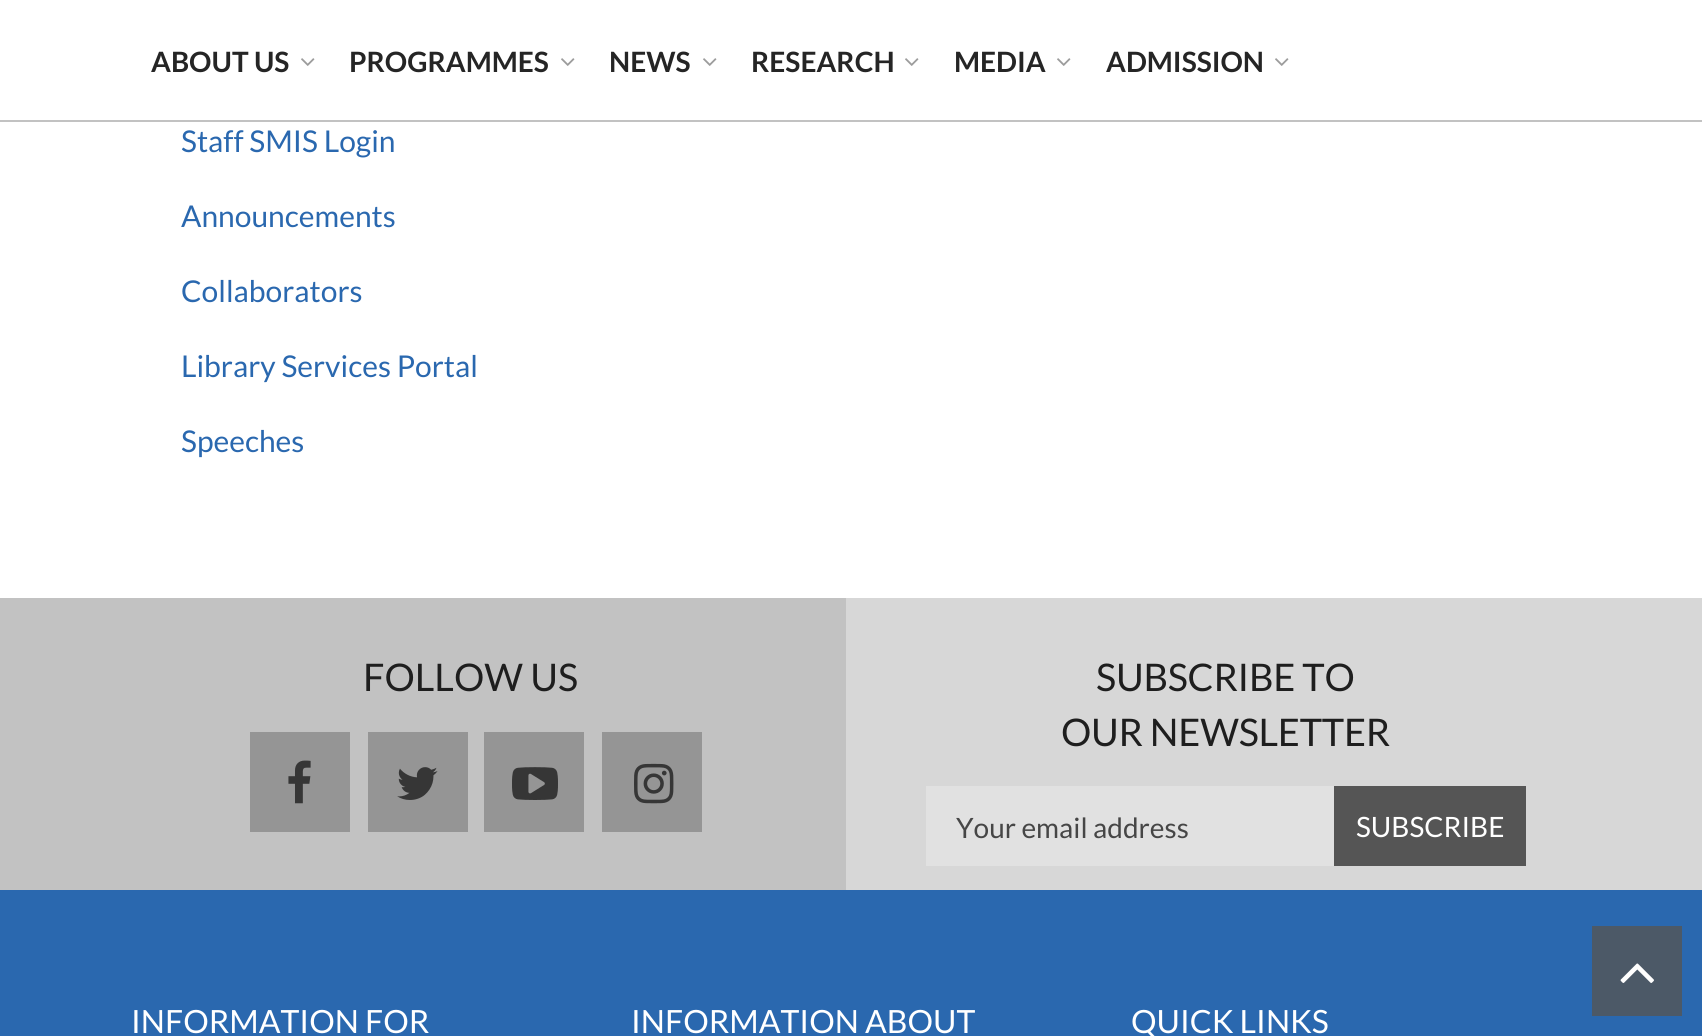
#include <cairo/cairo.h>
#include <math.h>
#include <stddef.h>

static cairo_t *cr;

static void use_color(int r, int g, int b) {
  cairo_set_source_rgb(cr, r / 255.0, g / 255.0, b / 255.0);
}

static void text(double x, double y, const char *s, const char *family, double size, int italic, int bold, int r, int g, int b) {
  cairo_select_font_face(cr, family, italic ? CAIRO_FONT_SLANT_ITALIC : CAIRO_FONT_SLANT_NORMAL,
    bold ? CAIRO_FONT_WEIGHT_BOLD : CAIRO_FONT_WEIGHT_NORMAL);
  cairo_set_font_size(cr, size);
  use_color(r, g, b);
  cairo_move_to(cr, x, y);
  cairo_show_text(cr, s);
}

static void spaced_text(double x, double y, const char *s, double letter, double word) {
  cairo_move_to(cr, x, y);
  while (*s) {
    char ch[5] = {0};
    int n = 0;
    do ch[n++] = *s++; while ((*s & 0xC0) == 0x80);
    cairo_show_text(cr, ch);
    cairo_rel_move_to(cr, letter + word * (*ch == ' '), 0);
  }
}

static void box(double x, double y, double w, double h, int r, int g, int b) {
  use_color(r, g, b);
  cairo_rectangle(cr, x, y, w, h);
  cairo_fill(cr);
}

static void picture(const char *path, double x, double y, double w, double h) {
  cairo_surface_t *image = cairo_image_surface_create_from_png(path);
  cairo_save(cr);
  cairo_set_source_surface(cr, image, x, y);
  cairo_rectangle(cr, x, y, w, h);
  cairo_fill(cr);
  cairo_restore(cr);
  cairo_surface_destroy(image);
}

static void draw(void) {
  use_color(255, 255, 255);
  cairo_paint(cr);
  box(0, 120, 1702, 2, 194, 194, 194);
  picture("img_01.png", 301, 58, 14, 8);
  picture("img_02.png", 561, 58, 14, 8);
  picture("img_02.png", 703, 58, 14, 8);
  picture("img_02.png", 905, 58, 14, 8);
  picture("img_02.png", 1057, 58, 14, 8);
  picture("img_02.png", 1275, 58, 14, 8);
  box(0, 598, 846, 292, 194, 194, 194);
  box(846, 598, 856, 292, 215, 215, 215);
  box(250, 732, 100, 100, 149, 149, 149);
  picture("img_03.png", 288, 760, 23, 44);
  box(368, 732, 100, 100, 149, 149, 149);
  picture("img_04.png", 397, 767, 41, 33);
  box(484, 732, 100, 100, 149, 149, 149);
  picture("img_05.png", 512, 767, 46, 33);
  box(602, 732, 100, 100, 149, 149, 149);
  picture("img_06.png", 634, 763, 40, 41);
  box(926, 786, 408, 80, 225, 225, 225);
  box(1334, 786, 192, 80, 85, 85, 85);
  box(0, 890, 1702, 146, 42, 104, 175);
  box(1592, 926, 90, 90, 76, 89, 103);
  picture("img_07.png", 1620, 963, 34, 20);
  text(151, 72, "ABOUT US", "Lato", 28, 0, 1, 37, 37, 37);
  text(349, 72, "PROGRAMMES", "Lato", 28, 0, 1, 37, 37, 37);
  text(609, 72, "NEWS", "Lato", 28, 0, 1, 37, 37, 37);
  text(751, 72, "RESEARCH", "Lato", 28, 0, 1, 37, 37, 37);
  text(954, 72, "MEDIA", "Lato", 28, 0, 1, 37, 37, 37);
  text(1106, 72, "ADMISSION", "Lato", 28, 0, 1, 37, 37, 37);
  text(181, 152, "Staff SMIS Login", "Lato", 30, 0, 0, 42, 104, 175);
  text(181, 227, "Announcements", "Lato", 30, 0, 0, 42, 104, 175);
  text(181, 302, "Collaborators", "Lato", 30, 0, 0, 42, 104, 175);
  text(181, 377, "Library Services Portal", "Lato", 30, 0, 0, 42, 104, 175);
  text(181, 452, "Speeches", "Lato", 30, 0, 0, 42, 104, 175);
  text(363, 691, "FOLLOW US", "Lato", 38, 0, 0, 30, 30, 30);
  spaced_text(1096, 691, "SUBSCRIBE TO", -0.25, 0);
  spaced_text(1061, 746, "OUR NEWSLETTER", -0.25, 0);
  text(956, 838, "Your email address", "Lato", 28, 0, 0, 70, 70, 70);
  text(1356, 837, "SUBSCRIBE", "Lato", 28, 0, 0, 255, 255, 255);
  text(131, 1033, "INFORMATION FOR", "Lato", 32, 0, 0, 255, 255, 255);
  text(631, 1033, "INFORMATION ABOUT", "Lato", 32, 0, 0, 255, 255, 255);
  text(1131, 1033, "QUICK LINKS", "Lato", 32, 0, 0, 255, 255, 255);
}

int main(void) {
  cairo_surface_t *surface = cairo_image_surface_create(CAIRO_FORMAT_RGB24, 1702, 1036);
  cr = cairo_create(surface);
  cairo_font_options_t *options = cairo_font_options_create();
  cairo_font_options_set_hint_metrics(options, CAIRO_HINT_METRICS_OFF);
  cairo_font_options_set_hint_style(options, CAIRO_HINT_STYLE_NONE);
  cairo_set_font_options(cr, options);
  cairo_set_miter_limit(cr, 4);
  draw();
  cairo_surface_write_to_png(surface, "out.png");
  cairo_font_options_destroy(options);
  cairo_destroy(cr);
  cairo_surface_destroy(surface);
  return 0;
}
